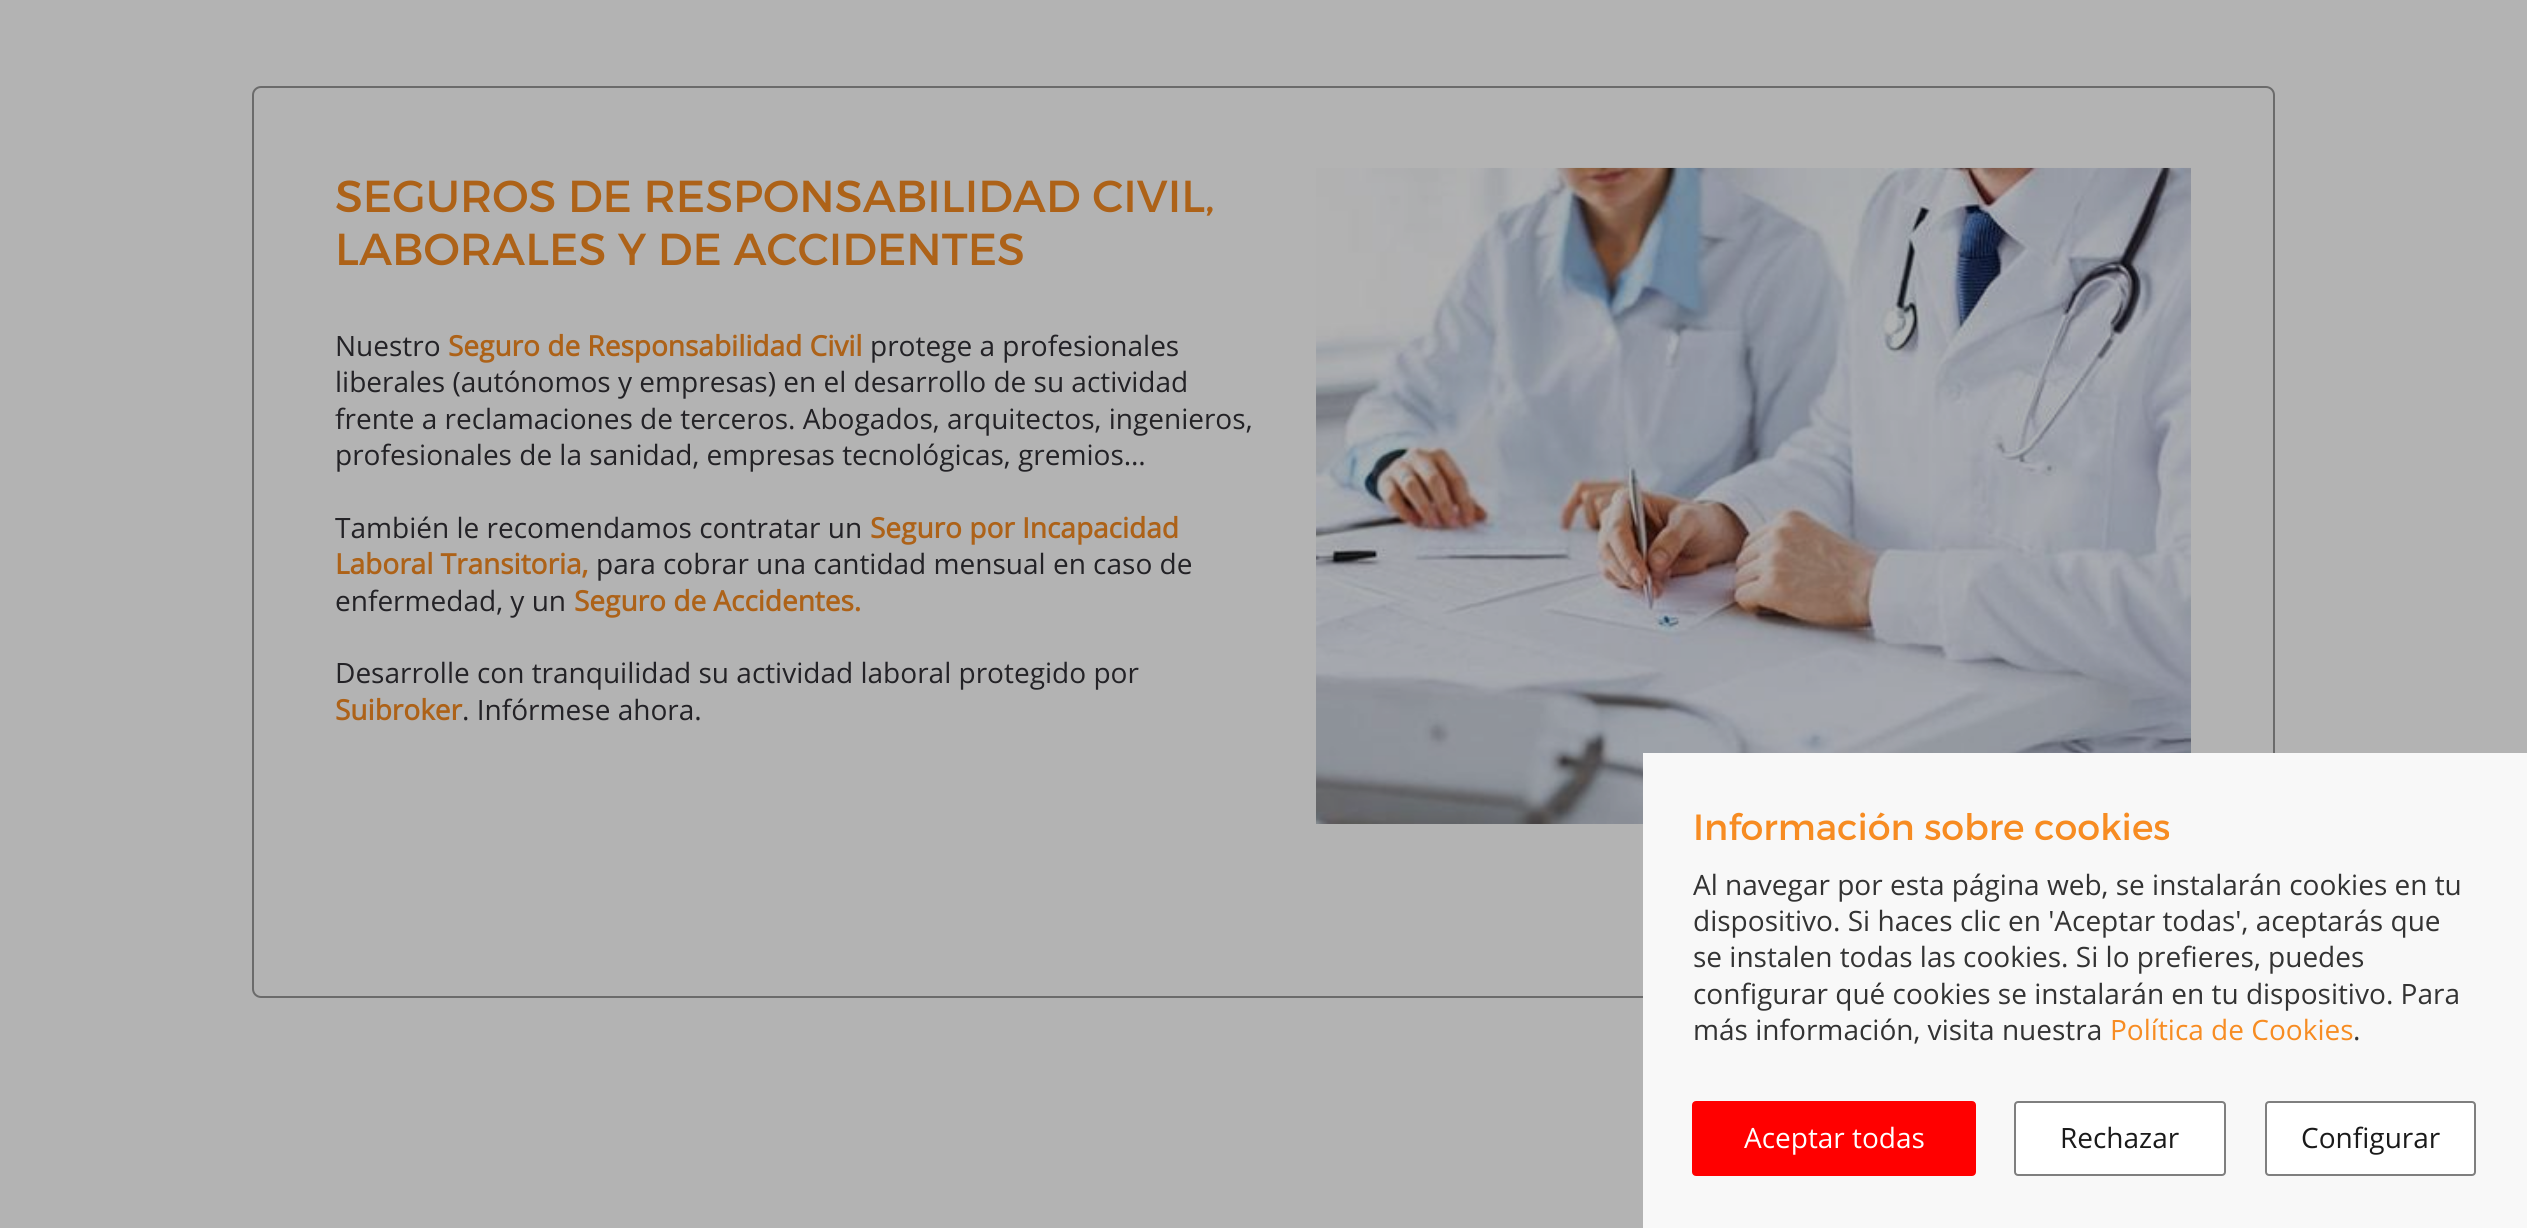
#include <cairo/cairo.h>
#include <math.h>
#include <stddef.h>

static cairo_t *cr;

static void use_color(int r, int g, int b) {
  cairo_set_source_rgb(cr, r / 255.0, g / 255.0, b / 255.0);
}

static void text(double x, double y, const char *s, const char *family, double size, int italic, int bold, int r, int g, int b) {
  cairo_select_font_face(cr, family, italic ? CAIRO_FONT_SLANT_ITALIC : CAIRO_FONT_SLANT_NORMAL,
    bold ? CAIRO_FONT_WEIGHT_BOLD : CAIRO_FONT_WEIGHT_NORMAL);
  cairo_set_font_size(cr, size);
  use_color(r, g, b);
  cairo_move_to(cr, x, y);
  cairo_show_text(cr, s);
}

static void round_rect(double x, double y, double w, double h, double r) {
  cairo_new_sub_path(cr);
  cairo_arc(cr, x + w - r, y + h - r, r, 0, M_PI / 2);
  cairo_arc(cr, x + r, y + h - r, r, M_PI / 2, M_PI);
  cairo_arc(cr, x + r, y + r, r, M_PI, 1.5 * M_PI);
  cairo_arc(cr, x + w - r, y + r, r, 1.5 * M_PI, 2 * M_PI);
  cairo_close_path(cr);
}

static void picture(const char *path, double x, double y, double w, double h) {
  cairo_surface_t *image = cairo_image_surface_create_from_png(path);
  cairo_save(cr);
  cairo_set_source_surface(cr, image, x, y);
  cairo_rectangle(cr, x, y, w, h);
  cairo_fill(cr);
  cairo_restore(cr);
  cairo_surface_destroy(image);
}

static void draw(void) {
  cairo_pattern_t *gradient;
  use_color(179, 179, 179);
  cairo_paint(cr);
  round_rect(253, 87, 2021, 910, 8);
  use_color(107, 107, 107);
  cairo_stroke(cr);
  picture("img_01.png", 1316, 167, 875, 657);
  gradient = cairo_pattern_create_linear(0, 991, 2527, 991);
  cairo_pattern_add_color_stop_rgba(gradient, 0, 0, 0, 0, 0);
  cairo_pattern_add_color_stop_rgba(gradient, 0.65, 0.973, 0.973, 0.973, 0);
  cairo_pattern_add_color_stop_rgba(gradient, 0.65, 0.973, 0.973, 0.973, 1);
  cairo_pattern_add_color_stop_rgba(gradient, 1, 0.973, 0.973, 0.973, 1);
  cairo_set_source(cr, gradient);
  cairo_pattern_destroy(gradient);
  cairo_rectangle(cr, 1643, 753, 884, 475);
  cairo_fill(cr);
  use_color(255, 0, 0);
  round_rect(1693, 1102, 282, 73, 3);
  cairo_fill_preserve(cr);
  cairo_stroke(cr);
  use_color(255, 255, 255);
  round_rect(2015, 1102, 210, 73, 3);
  cairo_fill_preserve(cr);
  use_color(127, 127, 127);
  cairo_stroke(cr);
  use_color(255, 255, 255);
  round_rect(2266, 1102, 209, 73, 3);
  cairo_fill_preserve(cr);
  use_color(127, 127, 127);
  cairo_stroke(cr);
  text(335, 212, "SEGUROS DE RESPONSABILIDAD CIVIL,", "Montserrat", 44.75, 0, 0, 173, 98, 24);
  text(335, 265, "LABORALES Y DE ACCIDENTES", "Montserrat", 44.75, 0, 0, 173, 98, 24);
  text(335, 356, "Nuestro", "Open Sans", 28, 0, 0, 35, 34, 38);
  text(448, 356, "Seguro de Responsabilidad Civil", "Open Sans", 28, 0, 1, 173, 98, 24);
  text(870, 356, "protege a profesionales", "Open Sans", 28, 0, 0, 35, 34, 38);
  text(335, 392, "liberales (autónomos y empresas) en el desarrollo de su actividad", "Open Sans", 28, 0, 0, 35, 34, 38);
  text(335, 429, "frente a reclamaciones de terceros. Abogados, arquitectos, ingenieros,", "Open Sans", 28, 0, 0, 35, 34, 38);
  text(335, 465, "profesionales de la sanidad, empresas tecnológicas, gremios…", "Open Sans", 28, 0, 0, 35, 34, 38);
  text(335, 538, "También le recomendamos contratar un", "Open Sans", 28, 0, 0, 35, 34, 38);
  text(870, 538, "Seguro por Incapacidad", "Open Sans", 28, 0, 1, 173, 98, 24);
  text(335, 574, "Laboral Transitoria,", "Open Sans", 28, 0, 1, 173, 98, 24);
  text(596, 574, "para cobrar una cantidad mensual en caso de", "Open Sans", 28, 0, 0, 35, 34, 38);
  text(335, 611, "enfermedad, y un", "Open Sans", 28, 0, 0, 35, 34, 38);
  text(574, 611, "Seguro de Accidentes.", "Open Sans", 28, 0, 1, 173, 98, 24);
  text(335, 683, "Desarrolle con tranquilidad su actividad laboral protegido por", "Open Sans", 28, 0, 0, 35, 34, 38);
  text(335, 720, "Suibroker", "Open Sans", 28, 0, 1, 173, 98, 24);
  text(462, 720, ". Infórmese ahora.", "Open Sans", 28, 0, 0, 35, 34, 38);
  text(1693, 840, "Información sobre cookies", "Montserrat", 36.4, 0, 0, 247, 140, 34);
  text(1693, 895, "Al navegar por esta página web, se instalarán cookies en tu", "Open Sans", 28, 0, 0, 51, 51, 51);
  text(1693, 931, "dispositivo. Si haces clic en 'Aceptar todas', aceptarás que", "Open Sans", 28, 0, 0, 51, 51, 51);
  text(1693, 967, "se instalen todas las cookies. Si lo prefieres, puedes", "Open Sans", 28, 0, 0, 51, 51, 51);
  text(1693, 1004, "configurar qué cookies se instalarán en tu dispositivo. Para", "Open Sans", 28, 0, 0, 51, 51, 51);
  text(1693, 1040, "más información, visita nuestra", "Open Sans", 28, 0, 0, 51, 51, 51);
  text(2110, 1040, "Política de Cookies", "Open Sans", 28, 0, 0, 247, 140, 34);
  text(2353, 1040, ".", "Open Sans", 28, 0, 0, 51, 51, 51);
  text(1744, 1148, "Aceptar todas", "Open Sans", 28, 0, 0, 255, 255, 255);
  text(2060, 1148, "Rechazar", "Open Sans", 28, 0, 0, 26, 26, 26);
  text(2301, 1148, "Configurar", "Open Sans", 28, 0, 0, 26, 26, 26);
}

int main(void) {
  cairo_surface_t *surface = cairo_image_surface_create(CAIRO_FORMAT_RGB24, 2527, 1228);
  cr = cairo_create(surface);
  cairo_font_options_t *options = cairo_font_options_create();
  cairo_font_options_set_hint_metrics(options, CAIRO_HINT_METRICS_OFF);
  cairo_font_options_set_hint_style(options, CAIRO_HINT_STYLE_NONE);
  cairo_set_font_options(cr, options);
  cairo_set_miter_limit(cr, 4);
  draw();
  cairo_surface_write_to_png(surface, "out.png");
  cairo_font_options_destroy(options);
  cairo_destroy(cr);
  cairo_surface_destroy(surface);
  return 0;
}
